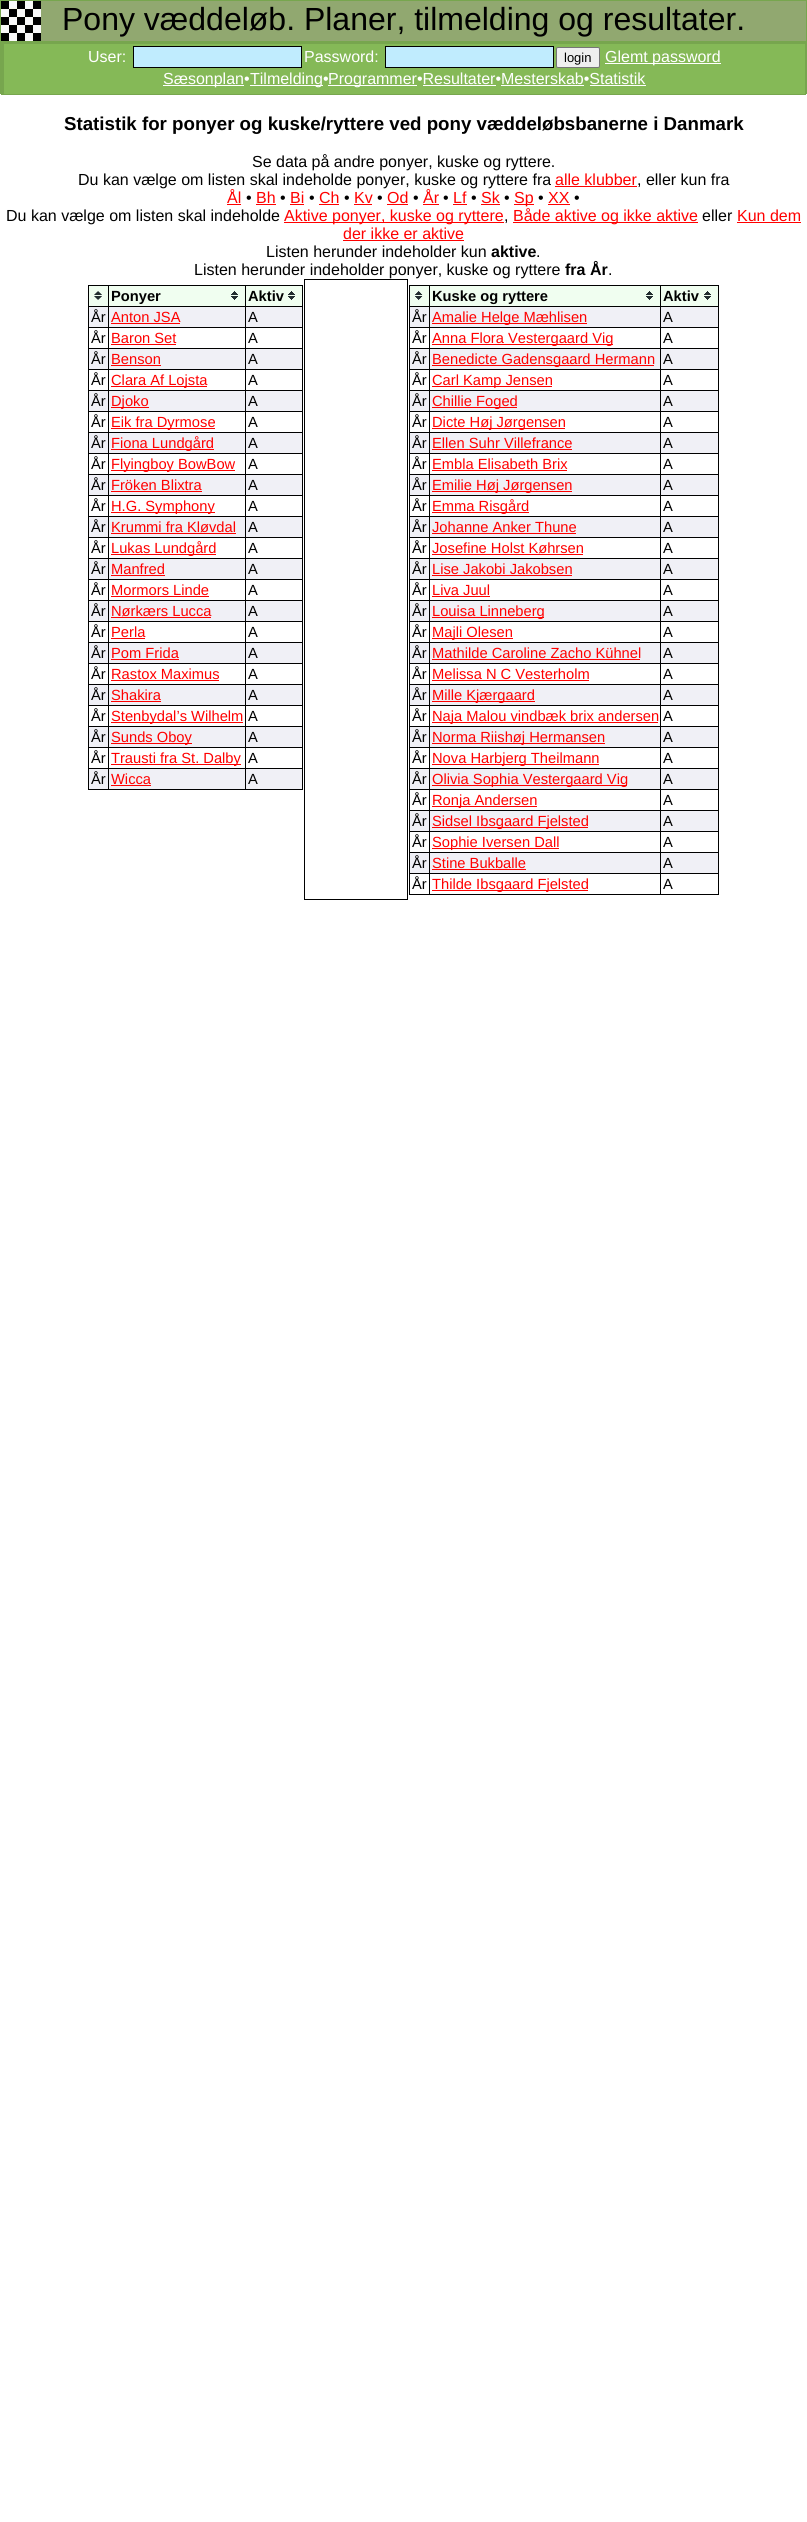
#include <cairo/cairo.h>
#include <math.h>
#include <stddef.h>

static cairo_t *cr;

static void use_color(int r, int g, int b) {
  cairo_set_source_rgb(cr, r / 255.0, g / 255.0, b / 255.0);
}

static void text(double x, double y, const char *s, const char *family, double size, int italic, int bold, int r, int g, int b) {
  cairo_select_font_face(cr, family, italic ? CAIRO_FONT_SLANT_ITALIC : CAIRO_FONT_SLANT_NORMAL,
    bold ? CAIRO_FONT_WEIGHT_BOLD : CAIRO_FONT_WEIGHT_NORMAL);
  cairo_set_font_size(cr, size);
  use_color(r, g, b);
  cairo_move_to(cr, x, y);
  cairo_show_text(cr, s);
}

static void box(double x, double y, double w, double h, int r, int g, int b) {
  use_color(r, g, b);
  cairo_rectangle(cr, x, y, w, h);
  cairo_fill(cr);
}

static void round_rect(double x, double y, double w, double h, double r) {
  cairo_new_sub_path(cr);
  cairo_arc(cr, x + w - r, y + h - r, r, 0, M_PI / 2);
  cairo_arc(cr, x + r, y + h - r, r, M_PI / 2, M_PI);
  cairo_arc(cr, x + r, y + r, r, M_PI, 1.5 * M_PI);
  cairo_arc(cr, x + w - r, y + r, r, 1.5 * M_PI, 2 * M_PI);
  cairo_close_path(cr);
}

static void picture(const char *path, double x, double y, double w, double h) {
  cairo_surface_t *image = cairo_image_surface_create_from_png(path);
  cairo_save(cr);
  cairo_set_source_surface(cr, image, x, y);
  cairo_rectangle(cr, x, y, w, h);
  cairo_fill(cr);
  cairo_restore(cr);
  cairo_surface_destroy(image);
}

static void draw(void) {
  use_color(255, 255, 255);
  cairo_paint(cr);
  box(41, 1, 765, 40, 145, 168, 112);
  picture("img_01.png", 1, 1, 40, 40);
  cairo_rectangle(cr, 0.5, 0.5, 806, 41);
  use_color(119, 166, 78);
  cairo_set_line_width(cr, 1);
  cairo_stroke(cr);
  cairo_rectangle(cr, 0.5, 42.5, 806, 51);
  cairo_stroke(cr);
  box(3, 43, 803, 1, 119, 166, 78);
  box(805, 43, 1, 52, 119, 166, 78);
  box(3, 94, 803, 1, 119, 166, 78);
  box(3, 43, 1, 52, 119, 166, 78);
  box(2, 43, 2, 1, 119, 166, 78);
  box(2, 94, 2, 1, 119, 166, 78);
  box(2, 43, 1, 52, 119, 166, 78);
  box(1, 43, 2, 1, 119, 166, 78);
  box(1, 94, 2, 1, 119, 166, 78);
  box(1, 43, 1, 52, 119, 166, 78);
  box(4, 44, 801, 50, 133, 185, 87);
  use_color(192, 236, 254);
  cairo_rectangle(cr, 133.5, 46.5, 168, 21);
  cairo_fill_preserve(cr);
  use_color(0, 0, 0);
  cairo_stroke(cr);
  use_color(192, 236, 254);
  cairo_rectangle(cr, 385.5, 46.5, 168, 21);
  cairo_fill_preserve(cr);
  use_color(0, 0, 0);
  cairo_stroke(cr);
  use_color(239, 239, 239);
  round_rect(556.5, 47.5, 43, 20, 1.5);
  cairo_fill_preserve(cr);
  use_color(118, 118, 118);
  cairo_stroke(cr);
  box(605, 63, 116, 1, 255, 255, 255);
  box(163, 85, 81, 1, 255, 255, 255);
  box(250, 85, 73, 1, 255, 255, 255);
  box(328, 85, 89, 1, 255, 255, 255);
  box(423, 85, 73, 1, 255, 255, 255);
  box(501, 85, 83, 1, 255, 255, 255);
  box(590, 85, 56, 1, 255, 255, 255);
  box(555, 186, 82, 1, 255, 0, 0);
  box(227, 204, 14, 1, 255, 0, 0);
  box(256, 204, 20, 1, 255, 0, 0);
  box(290, 204, 14, 1, 255, 0, 0);
  box(319, 204, 20, 1, 255, 0, 0);
  box(354, 204, 18, 1, 255, 0, 0);
  box(387, 204, 21, 1, 255, 0, 0);
  box(423, 204, 16, 1, 255, 0, 0);
  box(453, 204, 14, 1, 255, 0, 0);
  box(481, 204, 19, 1, 255, 0, 0);
  box(514, 204, 20, 1, 255, 0, 0);
  box(548, 204, 22, 1, 255, 0, 0);
  box(284, 222, 220, 1, 255, 0, 0);
  box(513, 222, 185, 1, 255, 0, 0);
  box(737, 222, 64, 1, 255, 0, 0);
  box(343, 240, 121, 1, 255, 0, 0);
  box(88, 285, 215, 1, 0, 0, 0);
  box(302, 285, 1, 505, 0, 0, 0);
  box(88, 789, 215, 1, 0, 0, 0);
  box(88, 285, 1, 505, 0, 0, 0);
  picture("img_02.png", 89, 286, 19, 20);
  picture("img_03.png", 109, 286, 136, 20);
  box(245, 306, 58, 1, 0, 0, 0);
  box(245, 327, 58, 1, 0, 0, 0);
  box(245, 348, 58, 1, 0, 0, 0);
  box(245, 369, 58, 1, 0, 0, 0);
  box(245, 390, 58, 1, 0, 0, 0);
  box(245, 411, 58, 1, 0, 0, 0);
  box(245, 432, 58, 1, 0, 0, 0);
  box(245, 453, 58, 1, 0, 0, 0);
  box(245, 474, 58, 1, 0, 0, 0);
  box(245, 495, 58, 1, 0, 0, 0);
  box(245, 516, 58, 1, 0, 0, 0);
  box(245, 537, 58, 1, 0, 0, 0);
  box(245, 558, 58, 1, 0, 0, 0);
  box(245, 579, 58, 1, 0, 0, 0);
  box(245, 600, 58, 1, 0, 0, 0);
  box(245, 621, 58, 1, 0, 0, 0);
  box(245, 642, 58, 1, 0, 0, 0);
  box(245, 663, 58, 1, 0, 0, 0);
  box(245, 684, 58, 1, 0, 0, 0);
  box(245, 705, 58, 1, 0, 0, 0);
  box(245, 726, 58, 1, 0, 0, 0);
  box(245, 747, 58, 1, 0, 0, 0);
  box(245, 768, 58, 1, 0, 0, 0);
  box(245, 768, 1, 22, 0, 0, 0);
  box(108, 768, 138, 1, 0, 0, 0);
  box(245, 747, 1, 22, 0, 0, 0);
  box(108, 747, 138, 1, 0, 0, 0);
  box(245, 726, 1, 22, 0, 0, 0);
  box(108, 726, 138, 1, 0, 0, 0);
  box(245, 705, 1, 22, 0, 0, 0);
  box(108, 705, 138, 1, 0, 0, 0);
  box(245, 684, 1, 22, 0, 0, 0);
  box(108, 684, 138, 1, 0, 0, 0);
  box(245, 663, 1, 22, 0, 0, 0);
  box(108, 663, 138, 1, 0, 0, 0);
  box(245, 642, 1, 22, 0, 0, 0);
  box(108, 642, 138, 1, 0, 0, 0);
  box(245, 621, 1, 22, 0, 0, 0);
  box(108, 621, 138, 1, 0, 0, 0);
  box(245, 600, 1, 22, 0, 0, 0);
  box(108, 600, 138, 1, 0, 0, 0);
  box(245, 579, 1, 22, 0, 0, 0);
  box(108, 579, 138, 1, 0, 0, 0);
  box(245, 558, 1, 22, 0, 0, 0);
  box(108, 558, 138, 1, 0, 0, 0);
  box(245, 537, 1, 22, 0, 0, 0);
  box(108, 537, 138, 1, 0, 0, 0);
  box(245, 516, 1, 22, 0, 0, 0);
  box(108, 516, 138, 1, 0, 0, 0);
  box(245, 495, 1, 22, 0, 0, 0);
  box(108, 495, 138, 1, 0, 0, 0);
  box(245, 474, 1, 22, 0, 0, 0);
  box(108, 474, 138, 1, 0, 0, 0);
  box(245, 453, 1, 22, 0, 0, 0);
  box(108, 453, 138, 1, 0, 0, 0);
  box(245, 432, 1, 22, 0, 0, 0);
  box(108, 432, 138, 1, 0, 0, 0);
  box(245, 411, 1, 22, 0, 0, 0);
  box(108, 411, 138, 1, 0, 0, 0);
  box(245, 390, 1, 22, 0, 0, 0);
  box(108, 390, 138, 1, 0, 0, 0);
  box(245, 369, 1, 22, 0, 0, 0);
  box(108, 369, 138, 1, 0, 0, 0);
  box(245, 348, 1, 22, 0, 0, 0);
  box(108, 348, 138, 1, 0, 0, 0);
  box(245, 327, 1, 22, 0, 0, 0);
  box(108, 327, 138, 1, 0, 0, 0);
  box(245, 306, 1, 22, 0, 0, 0);
  box(108, 306, 138, 1, 0, 0, 0);
  box(108, 768, 1, 22, 0, 0, 0);
  box(88, 768, 21, 1, 0, 0, 0);
  box(108, 747, 1, 22, 0, 0, 0);
  box(88, 747, 21, 1, 0, 0, 0);
  box(108, 726, 1, 22, 0, 0, 0);
  box(88, 726, 21, 1, 0, 0, 0);
  box(108, 705, 1, 22, 0, 0, 0);
  box(88, 705, 21, 1, 0, 0, 0);
  box(108, 684, 1, 22, 0, 0, 0);
  box(88, 684, 21, 1, 0, 0, 0);
  box(108, 663, 1, 22, 0, 0, 0);
  box(88, 663, 21, 1, 0, 0, 0);
  box(108, 642, 1, 22, 0, 0, 0);
  box(88, 642, 21, 1, 0, 0, 0);
  box(108, 621, 1, 22, 0, 0, 0);
  box(88, 621, 21, 1, 0, 0, 0);
  box(108, 600, 1, 22, 0, 0, 0);
  box(88, 600, 21, 1, 0, 0, 0);
  box(108, 579, 1, 22, 0, 0, 0);
  box(88, 579, 21, 1, 0, 0, 0);
  box(108, 558, 1, 22, 0, 0, 0);
  box(88, 558, 21, 1, 0, 0, 0);
  box(108, 537, 1, 22, 0, 0, 0);
  box(88, 537, 21, 1, 0, 0, 0);
  box(108, 516, 1, 22, 0, 0, 0);
  box(88, 516, 21, 1, 0, 0, 0);
  box(108, 495, 1, 22, 0, 0, 0);
  box(88, 495, 21, 1, 0, 0, 0);
  box(108, 474, 1, 22, 0, 0, 0);
  box(88, 474, 21, 1, 0, 0, 0);
  box(108, 453, 1, 22, 0, 0, 0);
  box(88, 453, 21, 1, 0, 0, 0);
  box(108, 432, 1, 22, 0, 0, 0);
  box(88, 432, 21, 1, 0, 0, 0);
  box(108, 411, 1, 22, 0, 0, 0);
  box(88, 411, 21, 1, 0, 0, 0);
  box(108, 390, 1, 22, 0, 0, 0);
  box(88, 390, 21, 1, 0, 0, 0);
  box(108, 369, 1, 22, 0, 0, 0);
  box(88, 369, 21, 1, 0, 0, 0);
  box(108, 348, 1, 22, 0, 0, 0);
  box(88, 348, 21, 1, 0, 0, 0);
  box(108, 327, 1, 22, 0, 0, 0);
  box(88, 327, 21, 1, 0, 0, 0);
  box(108, 306, 1, 22, 0, 0, 0);
  box(88, 306, 21, 1, 0, 0, 0);
  box(108, 285, 1, 22, 0, 0, 0);
  picture("img_04.png", 246, 286, 56, 20);
  box(245, 285, 1, 22, 0, 0, 0);
  box(89, 307, 19, 20, 240, 240, 246);
  box(109, 307, 136, 20, 240, 240, 246);
  box(111, 323, 69, 1, 255, 0, 0);
  box(246, 307, 56, 20, 240, 240, 246);
  box(111, 344, 65, 1, 255, 0, 0);
  box(89, 349, 19, 20, 240, 240, 246);
  box(109, 349, 136, 20, 240, 240, 246);
  box(111, 365, 50, 1, 255, 0, 0);
  box(246, 349, 56, 20, 240, 240, 246);
  box(111, 386, 96, 1, 255, 0, 0);
  box(89, 391, 19, 20, 240, 240, 246);
  box(109, 391, 136, 20, 240, 240, 246);
  box(111, 407, 38, 1, 255, 0, 0);
  box(246, 391, 56, 20, 240, 240, 246);
  box(111, 428, 104, 1, 255, 0, 0);
  box(89, 433, 19, 20, 240, 240, 246);
  box(109, 433, 136, 20, 240, 240, 246);
  box(111, 449, 103, 1, 255, 0, 0);
  box(246, 433, 56, 20, 240, 240, 246);
  box(111, 470, 124, 1, 255, 0, 0);
  box(89, 475, 19, 20, 240, 240, 246);
  box(109, 475, 136, 20, 240, 240, 246);
  box(111, 491, 91, 1, 255, 0, 0);
  box(246, 475, 56, 20, 240, 240, 246);
  box(111, 512, 104, 1, 255, 0, 0);
  box(89, 517, 19, 20, 240, 240, 246);
  box(109, 517, 136, 20, 240, 240, 246);
  box(111, 533, 125, 1, 255, 0, 0);
  box(246, 517, 56, 20, 240, 240, 246);
  box(111, 554, 105, 1, 255, 0, 0);
  box(89, 559, 19, 20, 240, 240, 246);
  box(109, 559, 136, 20, 240, 240, 246);
  box(111, 575, 54, 1, 255, 0, 0);
  box(246, 559, 56, 20, 240, 240, 246);
  box(111, 596, 98, 1, 255, 0, 0);
  box(89, 601, 19, 20, 240, 240, 246);
  box(109, 601, 136, 20, 240, 240, 246);
  box(111, 617, 100, 1, 255, 0, 0);
  box(246, 601, 56, 20, 240, 240, 246);
  box(111, 638, 34, 1, 255, 0, 0);
  box(89, 643, 19, 20, 240, 240, 246);
  box(109, 643, 136, 20, 240, 240, 246);
  box(111, 659, 68, 1, 255, 0, 0);
  box(246, 643, 56, 20, 240, 240, 246);
  box(111, 680, 108, 1, 255, 0, 0);
  box(89, 685, 19, 20, 240, 240, 246);
  box(109, 685, 136, 20, 240, 240, 246);
  box(111, 701, 50, 1, 255, 0, 0);
  box(246, 685, 56, 20, 240, 240, 246);
  box(111, 722, 132, 1, 255, 0, 0);
  box(89, 727, 19, 20, 240, 240, 246);
  box(109, 727, 136, 20, 240, 240, 246);
  box(111, 743, 81, 1, 255, 0, 0);
  box(246, 727, 56, 20, 240, 240, 246);
  box(111, 764, 130, 1, 255, 0, 0);
  box(89, 769, 19, 20, 240, 240, 246);
  box(109, 769, 136, 20, 240, 240, 246);
  box(111, 785, 40, 1, 255, 0, 0);
  box(246, 769, 56, 20, 240, 240, 246);
  box(304, 279, 104, 1, 0, 0, 0);
  box(407, 279, 1, 621, 0, 0, 0);
  box(304, 899, 104, 1, 0, 0, 0);
  box(304, 279, 1, 621, 0, 0, 0);
  box(409, 285, 310, 1, 0, 0, 0);
  box(718, 285, 1, 610, 0, 0, 0);
  box(409, 894, 310, 1, 0, 0, 0);
  box(409, 285, 1, 610, 0, 0, 0);
  picture("img_05.png", 410, 286, 19, 20);
  picture("img_06.png", 430, 286, 230, 20);
  box(660, 306, 59, 1, 0, 0, 0);
  box(660, 327, 59, 1, 0, 0, 0);
  box(660, 348, 59, 1, 0, 0, 0);
  box(660, 369, 59, 1, 0, 0, 0);
  box(660, 390, 59, 1, 0, 0, 0);
  box(660, 411, 59, 1, 0, 0, 0);
  box(660, 432, 59, 1, 0, 0, 0);
  box(660, 453, 59, 1, 0, 0, 0);
  box(660, 474, 59, 1, 0, 0, 0);
  box(660, 495, 59, 1, 0, 0, 0);
  box(660, 516, 59, 1, 0, 0, 0);
  box(660, 537, 59, 1, 0, 0, 0);
  box(660, 558, 59, 1, 0, 0, 0);
  box(660, 579, 59, 1, 0, 0, 0);
  box(660, 600, 59, 1, 0, 0, 0);
  box(660, 621, 59, 1, 0, 0, 0);
  box(660, 642, 59, 1, 0, 0, 0);
  box(660, 663, 59, 1, 0, 0, 0);
  box(660, 684, 59, 1, 0, 0, 0);
  box(660, 705, 59, 1, 0, 0, 0);
  box(660, 726, 59, 1, 0, 0, 0);
  box(660, 747, 59, 1, 0, 0, 0);
  box(660, 768, 59, 1, 0, 0, 0);
  box(660, 789, 59, 1, 0, 0, 0);
  box(660, 810, 59, 1, 0, 0, 0);
  box(660, 831, 59, 1, 0, 0, 0);
  box(660, 852, 59, 1, 0, 0, 0);
  box(660, 873, 59, 1, 0, 0, 0);
  box(660, 873, 1, 22, 0, 0, 0);
  box(429, 873, 232, 1, 0, 0, 0);
  box(660, 852, 1, 22, 0, 0, 0);
  box(429, 852, 232, 1, 0, 0, 0);
  box(660, 831, 1, 22, 0, 0, 0);
  box(429, 831, 232, 1, 0, 0, 0);
  box(660, 810, 1, 22, 0, 0, 0);
  box(429, 810, 232, 1, 0, 0, 0);
  box(660, 789, 1, 22, 0, 0, 0);
  box(429, 789, 232, 1, 0, 0, 0);
  box(660, 768, 1, 22, 0, 0, 0);
  box(429, 768, 232, 1, 0, 0, 0);
  box(660, 747, 1, 22, 0, 0, 0);
  box(429, 747, 232, 1, 0, 0, 0);
  box(660, 726, 1, 22, 0, 0, 0);
  box(429, 726, 232, 1, 0, 0, 0);
  box(660, 705, 1, 22, 0, 0, 0);
  box(429, 705, 232, 1, 0, 0, 0);
  box(660, 684, 1, 22, 0, 0, 0);
  box(429, 684, 232, 1, 0, 0, 0);
  box(660, 663, 1, 22, 0, 0, 0);
  box(429, 663, 232, 1, 0, 0, 0);
  box(660, 642, 1, 22, 0, 0, 0);
  box(429, 642, 232, 1, 0, 0, 0);
  box(660, 621, 1, 22, 0, 0, 0);
  box(429, 621, 232, 1, 0, 0, 0);
  box(660, 600, 1, 22, 0, 0, 0);
  box(429, 600, 232, 1, 0, 0, 0);
  box(660, 579, 1, 22, 0, 0, 0);
  box(429, 579, 232, 1, 0, 0, 0);
  box(660, 558, 1, 22, 0, 0, 0);
  box(429, 558, 232, 1, 0, 0, 0);
  box(660, 537, 1, 22, 0, 0, 0);
  box(429, 537, 232, 1, 0, 0, 0);
  box(660, 516, 1, 22, 0, 0, 0);
  box(429, 516, 232, 1, 0, 0, 0);
  box(660, 495, 1, 22, 0, 0, 0);
  box(429, 495, 232, 1, 0, 0, 0);
  box(660, 474, 1, 22, 0, 0, 0);
  box(429, 474, 232, 1, 0, 0, 0);
  box(660, 453, 1, 22, 0, 0, 0);
  box(429, 453, 232, 1, 0, 0, 0);
  box(660, 432, 1, 22, 0, 0, 0);
  box(429, 432, 232, 1, 0, 0, 0);
  box(660, 411, 1, 22, 0, 0, 0);
  box(429, 411, 232, 1, 0, 0, 0);
  box(660, 390, 1, 22, 0, 0, 0);
  box(429, 390, 232, 1, 0, 0, 0);
  box(660, 369, 1, 22, 0, 0, 0);
  box(429, 369, 232, 1, 0, 0, 0);
  box(660, 348, 1, 22, 0, 0, 0);
  box(429, 348, 232, 1, 0, 0, 0);
  box(660, 327, 1, 22, 0, 0, 0);
  box(429, 327, 232, 1, 0, 0, 0);
  box(660, 306, 1, 22, 0, 0, 0);
  box(429, 306, 232, 1, 0, 0, 0);
  box(429, 873, 1, 22, 0, 0, 0);
  box(409, 873, 21, 1, 0, 0, 0);
  box(429, 852, 1, 22, 0, 0, 0);
  box(409, 852, 21, 1, 0, 0, 0);
  box(429, 831, 1, 22, 0, 0, 0);
  box(409, 831, 21, 1, 0, 0, 0);
  box(429, 810, 1, 22, 0, 0, 0);
  box(409, 810, 21, 1, 0, 0, 0);
  box(429, 789, 1, 22, 0, 0, 0);
  box(409, 789, 21, 1, 0, 0, 0);
  box(429, 768, 1, 22, 0, 0, 0);
  box(409, 768, 21, 1, 0, 0, 0);
  box(429, 747, 1, 22, 0, 0, 0);
  box(409, 747, 21, 1, 0, 0, 0);
  box(429, 726, 1, 22, 0, 0, 0);
  box(409, 726, 21, 1, 0, 0, 0);
  box(429, 705, 1, 22, 0, 0, 0);
  box(409, 705, 21, 1, 0, 0, 0);
  box(429, 684, 1, 22, 0, 0, 0);
  box(409, 684, 21, 1, 0, 0, 0);
  box(429, 663, 1, 22, 0, 0, 0);
  box(409, 663, 21, 1, 0, 0, 0);
  box(429, 642, 1, 22, 0, 0, 0);
  box(409, 642, 21, 1, 0, 0, 0);
  box(429, 621, 1, 22, 0, 0, 0);
  box(409, 621, 21, 1, 0, 0, 0);
  box(429, 600, 1, 22, 0, 0, 0);
  box(409, 600, 21, 1, 0, 0, 0);
  box(429, 579, 1, 22, 0, 0, 0);
  box(409, 579, 21, 1, 0, 0, 0);
  box(429, 558, 1, 22, 0, 0, 0);
  box(409, 558, 21, 1, 0, 0, 0);
  box(429, 537, 1, 22, 0, 0, 0);
  box(409, 537, 21, 1, 0, 0, 0);
  box(429, 516, 1, 22, 0, 0, 0);
  box(409, 516, 21, 1, 0, 0, 0);
  box(429, 495, 1, 22, 0, 0, 0);
  box(409, 495, 21, 1, 0, 0, 0);
  box(429, 474, 1, 22, 0, 0, 0);
  box(409, 474, 21, 1, 0, 0, 0);
  box(429, 453, 1, 22, 0, 0, 0);
  box(409, 453, 21, 1, 0, 0, 0);
  box(429, 432, 1, 22, 0, 0, 0);
  box(409, 432, 21, 1, 0, 0, 0);
  box(429, 411, 1, 22, 0, 0, 0);
  box(409, 411, 21, 1, 0, 0, 0);
  box(429, 390, 1, 22, 0, 0, 0);
  box(409, 390, 21, 1, 0, 0, 0);
  box(429, 369, 1, 22, 0, 0, 0);
  box(409, 369, 21, 1, 0, 0, 0);
  box(429, 348, 1, 22, 0, 0, 0);
  box(409, 348, 21, 1, 0, 0, 0);
  box(429, 327, 1, 22, 0, 0, 0);
  box(409, 327, 21, 1, 0, 0, 0);
  box(429, 306, 1, 22, 0, 0, 0);
  box(409, 306, 21, 1, 0, 0, 0);
  box(429, 285, 1, 22, 0, 0, 0);
  picture("img_07.png", 661, 286, 57, 20);
  box(660, 285, 1, 22, 0, 0, 0);
  box(410, 307, 19, 20, 240, 240, 246);
  box(430, 307, 230, 20, 240, 240, 246);
  box(432, 323, 155, 1, 255, 0, 0);
  box(661, 307, 57, 20, 240, 240, 246);
  box(432, 344, 181, 1, 255, 0, 0);
  box(410, 349, 19, 20, 240, 240, 246);
  box(430, 349, 230, 20, 240, 240, 246);
  box(432, 365, 222, 1, 255, 0, 0);
  box(661, 349, 57, 20, 240, 240, 246);
  box(432, 386, 120, 1, 255, 0, 0);
  box(410, 391, 19, 20, 240, 240, 246);
  box(430, 391, 230, 20, 240, 240, 246);
  box(432, 407, 85, 1, 255, 0, 0);
  box(661, 391, 57, 20, 240, 240, 246);
  box(432, 428, 133, 1, 255, 0, 0);
  box(410, 433, 19, 20, 240, 240, 246);
  box(430, 433, 230, 20, 240, 240, 246);
  box(432, 449, 140, 1, 255, 0, 0);
  box(661, 433, 57, 20, 240, 240, 246);
  box(432, 470, 135, 1, 255, 0, 0);
  box(410, 475, 19, 20, 240, 240, 246);
  box(430, 475, 230, 20, 240, 240, 246);
  box(432, 491, 140, 1, 255, 0, 0);
  box(661, 475, 57, 20, 240, 240, 246);
  box(432, 512, 97, 1, 255, 0, 0);
  box(410, 517, 19, 20, 240, 240, 246);
  box(430, 517, 230, 20, 240, 240, 246);
  box(432, 533, 144, 1, 255, 0, 0);
  box(661, 517, 57, 20, 240, 240, 246);
  box(432, 554, 151, 1, 255, 0, 0);
  box(410, 559, 19, 20, 240, 240, 246);
  box(430, 559, 230, 20, 240, 240, 246);
  box(432, 575, 140, 1, 255, 0, 0);
  box(661, 559, 57, 20, 240, 240, 246);
  box(432, 596, 58, 1, 255, 0, 0);
  box(410, 601, 19, 20, 240, 240, 246);
  box(430, 601, 230, 20, 240, 240, 246);
  box(432, 617, 112, 1, 255, 0, 0);
  box(661, 601, 57, 20, 240, 240, 246);
  box(432, 638, 81, 1, 255, 0, 0);
  box(410, 643, 19, 20, 240, 240, 246);
  box(430, 643, 230, 20, 240, 240, 246);
  box(432, 659, 208, 1, 255, 0, 0);
  box(661, 643, 57, 20, 240, 240, 246);
  box(432, 680, 157, 1, 255, 0, 0);
  box(410, 685, 19, 20, 240, 240, 246);
  box(430, 685, 230, 20, 240, 240, 246);
  box(432, 701, 103, 1, 255, 0, 0);
  box(661, 685, 57, 20, 240, 240, 246);
  box(432, 722, 226, 1, 255, 0, 0);
  box(410, 727, 19, 20, 240, 240, 246);
  box(430, 727, 230, 20, 240, 240, 246);
  box(432, 743, 173, 1, 255, 0, 0);
  box(661, 727, 57, 20, 240, 240, 246);
  box(432, 764, 167, 1, 255, 0, 0);
  box(410, 769, 19, 20, 240, 240, 246);
  box(430, 769, 230, 20, 240, 240, 246);
  box(432, 785, 195, 1, 255, 0, 0);
  box(661, 769, 57, 20, 240, 240, 246);
  box(432, 806, 105, 1, 255, 0, 0);
  box(410, 811, 19, 20, 240, 240, 246);
  box(430, 811, 230, 20, 240, 240, 246);
  box(432, 827, 156, 1, 255, 0, 0);
  box(661, 811, 57, 20, 240, 240, 246);
  box(432, 848, 127, 1, 255, 0, 0);
  box(410, 853, 19, 20, 240, 240, 246);
  box(430, 853, 230, 20, 240, 240, 246);
  box(432, 869, 94, 1, 255, 0, 0);
  box(661, 853, 57, 20, 240, 240, 246);
  box(432, 890, 156, 1, 255, 0, 0);
  text(62, 30, "Pony væddeløb. Planer, tilmelding og resultater.", "Liberation Sans", 32, 0, 0, 0, 0, 0);
  text(88, 62, "User:", "Liberation Sans", 16, 0, 0, 255, 255, 255);
  text(304, 62, "Password:", "Liberation Sans", 16, 0, 0, 255, 255, 255);
  text(564, 62, "login", "Liberation Sans", 13, 0, 0, 0, 0, 0);
  text(605, 62, "Glemt password", "Liberation Sans", 16, 0, 0, 255, 255, 255);
  text(163, 84, "Sæsonplan•", "Liberation Sans", 16, 0, 0, 255, 255, 255);
  text(250, 84, "Tilmelding•", "Liberation Sans", 16, 0, 0, 255, 255, 255);
  text(328, 84, "Programmer•Resultater•Mesterskab•Statistik", "Liberation Sans", 16, 0, 0, 255, 255, 255);
  text(64, 130, "Statistik for ponyer og kuske/ryttere ved pony væddeløbsbanerne i Danmark", "Liberation Sans", 18.7, 0, 1, 0, 0, 0);
  text(252, 167, "Se data på andre ponyer, kuske og ryttere.", "Liberation Sans", 16, 0, 0, 0, 0, 0);
  text(78, 185, "Du kan vælge om listen skal indeholde ponyer, kuske og ryttere fra", "Liberation Sans", 16, 0, 0, 0, 0, 0);
  text(555, 185, "alle klubber", "Liberation Sans", 16, 0, 0, 255, 0, 0);
  text(637, 185, ", eller kun fra", "Liberation Sans", 16, 0, 0, 0, 0, 0);
  text(227, 203, "Ål", "Liberation Sans", 16, 0, 0, 255, 0, 0);
  text(246, 203, "•", "Liberation Sans", 16, 0, 0, 0, 0, 0);
  text(256, 203, "Bh", "Liberation Sans", 16, 0, 0, 255, 0, 0);
  text(280, 203, "•", "Liberation Sans", 16, 0, 0, 0, 0, 0);
  text(290, 203, "Bi", "Liberation Sans", 16, 0, 0, 255, 0, 0);
  text(309, 203, "•", "Liberation Sans", 16, 0, 0, 0, 0, 0);
  text(319, 203, "Ch", "Liberation Sans", 16, 0, 0, 255, 0, 0);
  text(344, 203, "•", "Liberation Sans", 16, 0, 0, 0, 0, 0);
  text(354, 203, "Kv", "Liberation Sans", 16, 0, 0, 255, 0, 0);
  text(377, 203, "•", "Liberation Sans", 16, 0, 0, 0, 0, 0);
  text(387, 203, "Od", "Liberation Sans", 16, 0, 0, 255, 0, 0);
  text(413, 203, "•", "Liberation Sans", 16, 0, 0, 0, 0, 0);
  text(423, 203, "År", "Liberation Sans", 16, 0, 0, 255, 0, 0);
  text(443, 203, "•", "Liberation Sans", 16, 0, 0, 0, 0, 0);
  text(453, 203, "Lf", "Liberation Sans", 16, 0, 0, 255, 0, 0);
  text(471, 203, "•", "Liberation Sans", 16, 0, 0, 0, 0, 0);
  text(481, 203, "Sk", "Liberation Sans", 16, 0, 0, 255, 0, 0);
  text(504, 203, "•", "Liberation Sans", 16, 0, 0, 0, 0, 0);
  text(514, 203, "Sp", "Liberation Sans", 16, 0, 0, 255, 0, 0);
  text(538, 203, "•", "Liberation Sans", 16, 0, 0, 0, 0, 0);
  text(548, 203, "XX", "Liberation Sans", 16, 0, 0, 255, 0, 0);
  text(574, 203, "•", "Liberation Sans", 16, 0, 0, 0, 0, 0);
  text(6, 221, "Du kan vælge om listen skal indeholde", "Liberation Sans", 16, 0, 0, 0, 0, 0);
  text(284, 221, "Aktive ponyer, kuske og ryttere", "Liberation Sans", 16, 0, 0, 255, 0, 0);
  text(504, 221, ",", "Liberation Sans", 16, 0, 0, 0, 0, 0);
  text(513, 221, "Både aktive og ikke aktive", "Liberation Sans", 16, 0, 0, 255, 0, 0);
  text(702, 221, "eller", "Liberation Sans", 16, 0, 0, 0, 0, 0);
  text(737, 221, "Kun dem", "Liberation Sans", 16, 0, 0, 255, 0, 0);
  text(343, 239, "der ikke er aktive", "Liberation Sans", 16, 0, 0, 255, 0, 0);
  text(266, 257, "Listen herunder indeholder kun", "Liberation Sans", 16, 0, 0, 0, 0, 0);
  text(491, 257, "aktive", "Liberation Sans", 16, 0, 1, 0, 0, 0);
  text(536, 257, ".", "Liberation Sans", 16, 0, 0, 0, 0, 0);
  text(194, 275, "Listen herunder indeholder ponyer, kuske og ryttere", "Liberation Sans", 16, 0, 0, 0, 0, 0);
  text(565, 275, "fra År", "Liberation Sans", 16, 0, 1, 0, 0, 0);
  text(608, 275, ".", "Liberation Sans", 16, 0, 0, 0, 0, 0);
  text(111, 301, "Ponyer", "Liberation Sans", 14.7, 0, 1, 0, 0, 0);
  text(248, 301, "Aktiv", "Liberation Sans", 14.7, 0, 1, 0, 0, 0);
  text(91, 322, "År", "Liberation Sans", 14.7, 0, 0, 0, 0, 0);
  text(111, 322, "Anton JSA", "Liberation Sans", 14.7, 0, 0, 255, 0, 0);
  text(248, 322, "A", "Liberation Sans", 14.7, 0, 0, 0, 0, 0);
  text(91, 343, "År", "Liberation Sans", 14.7, 0, 0, 0, 0, 0);
  text(111, 343, "Baron Set", "Liberation Sans", 14.7, 0, 0, 255, 0, 0);
  text(248, 343, "A", "Liberation Sans", 14.7, 0, 0, 0, 0, 0);
  text(91, 364, "År", "Liberation Sans", 14.7, 0, 0, 0, 0, 0);
  text(111, 364, "Benson", "Liberation Sans", 14.7, 0, 0, 255, 0, 0);
  text(248, 364, "A", "Liberation Sans", 14.7, 0, 0, 0, 0, 0);
  text(91, 385, "År", "Liberation Sans", 14.7, 0, 0, 0, 0, 0);
  text(111, 385, "Clara Af Lojsta", "Liberation Sans", 14.7, 0, 0, 255, 0, 0);
  text(248, 385, "A", "Liberation Sans", 14.7, 0, 0, 0, 0, 0);
  text(91, 406, "År", "Liberation Sans", 14.7, 0, 0, 0, 0, 0);
  text(111, 406, "Djoko", "Liberation Sans", 14.7, 0, 0, 255, 0, 0);
  text(248, 406, "A", "Liberation Sans", 14.7, 0, 0, 0, 0, 0);
  text(91, 427, "År", "Liberation Sans", 14.7, 0, 0, 0, 0, 0);
  text(111, 427, "Eik fra Dyrmose", "Liberation Sans", 14.7, 0, 0, 255, 0, 0);
  text(248, 427, "A", "Liberation Sans", 14.7, 0, 0, 0, 0, 0);
  text(91, 448, "År", "Liberation Sans", 14.7, 0, 0, 0, 0, 0);
  text(111, 448, "Fiona Lundgård", "Liberation Sans", 14.7, 0, 0, 255, 0, 0);
  text(248, 448, "A", "Liberation Sans", 14.7, 0, 0, 0, 0, 0);
  text(91, 469, "År", "Liberation Sans", 14.7, 0, 0, 0, 0, 0);
  text(111, 469, "Flyingboy BowBow", "Liberation Sans", 14.7, 0, 0, 255, 0, 0);
  text(248, 469, "A", "Liberation Sans", 14.7, 0, 0, 0, 0, 0);
  text(91, 490, "År", "Liberation Sans", 14.7, 0, 0, 0, 0, 0);
  text(111, 490, "Fröken Blixtra", "Liberation Sans", 14.7, 0, 0, 255, 0, 0);
  text(248, 490, "A", "Liberation Sans", 14.7, 0, 0, 0, 0, 0);
  text(91, 511, "År", "Liberation Sans", 14.7, 0, 0, 0, 0, 0);
  text(111, 511, "H.G. Symphony", "Liberation Sans", 14.7, 0, 0, 255, 0, 0);
  text(248, 511, "A", "Liberation Sans", 14.7, 0, 0, 0, 0, 0);
  text(91, 532, "År", "Liberation Sans", 14.7, 0, 0, 0, 0, 0);
  text(111, 532, "Krummi fra Kløvdal", "Liberation Sans", 14.7, 0, 0, 255, 0, 0);
  text(248, 532, "A", "Liberation Sans", 14.7, 0, 0, 0, 0, 0);
  text(91, 553, "År", "Liberation Sans", 14.7, 0, 0, 0, 0, 0);
  text(111, 553, "Lukas Lundgård", "Liberation Sans", 14.7, 0, 0, 255, 0, 0);
  text(248, 553, "A", "Liberation Sans", 14.7, 0, 0, 0, 0, 0);
  text(91, 574, "År", "Liberation Sans", 14.7, 0, 0, 0, 0, 0);
  text(111, 574, "Manfred", "Liberation Sans", 14.7, 0, 0, 255, 0, 0);
  text(248, 574, "A", "Liberation Sans", 14.7, 0, 0, 0, 0, 0);
  text(91, 595, "År", "Liberation Sans", 14.7, 0, 0, 0, 0, 0);
  text(111, 595, "Mormors Linde", "Liberation Sans", 14.7, 0, 0, 255, 0, 0);
  text(248, 595, "A", "Liberation Sans", 14.7, 0, 0, 0, 0, 0);
  text(91, 616, "År", "Liberation Sans", 14.7, 0, 0, 0, 0, 0);
  text(111, 616, "Nørkærs Lucca", "Liberation Sans", 14.7, 0, 0, 255, 0, 0);
  text(248, 616, "A", "Liberation Sans", 14.7, 0, 0, 0, 0, 0);
  text(91, 637, "År", "Liberation Sans", 14.7, 0, 0, 0, 0, 0);
  text(111, 637, "Perla", "Liberation Sans", 14.7, 0, 0, 255, 0, 0);
  text(248, 637, "A", "Liberation Sans", 14.7, 0, 0, 0, 0, 0);
  text(91, 658, "År", "Liberation Sans", 14.7, 0, 0, 0, 0, 0);
  text(111, 658, "Pom Frida", "Liberation Sans", 14.7, 0, 0, 255, 0, 0);
  text(248, 658, "A", "Liberation Sans", 14.7, 0, 0, 0, 0, 0);
  text(91, 679, "År", "Liberation Sans", 14.7, 0, 0, 0, 0, 0);
  text(111, 679, "Rastox Maximus", "Liberation Sans", 14.7, 0, 0, 255, 0, 0);
  text(248, 679, "A", "Liberation Sans", 14.7, 0, 0, 0, 0, 0);
  text(91, 700, "År", "Liberation Sans", 14.7, 0, 0, 0, 0, 0);
  text(111, 700, "Shakira", "Liberation Sans", 14.7, 0, 0, 255, 0, 0);
  text(248, 700, "A", "Liberation Sans", 14.7, 0, 0, 0, 0, 0);
  text(91, 721, "År", "Liberation Sans", 14.7, 0, 0, 0, 0, 0);
  text(111, 721, "Stenbydal’s Wilhelm", "Liberation Sans", 14.7, 0, 0, 255, 0, 0);
  text(248, 721, "A", "Liberation Sans", 14.7, 0, 0, 0, 0, 0);
  text(91, 742, "År", "Liberation Sans", 14.7, 0, 0, 0, 0, 0);
  text(111, 742, "Sunds Oboy", "Liberation Sans", 14.7, 0, 0, 255, 0, 0);
  text(248, 742, "A", "Liberation Sans", 14.7, 0, 0, 0, 0, 0);
  text(91, 763, "År", "Liberation Sans", 14.7, 0, 0, 0, 0, 0);
  text(111, 763, "Trausti fra St. Dalby", "Liberation Sans", 14.7, 0, 0, 255, 0, 0);
  text(248, 763, "A", "Liberation Sans", 14.7, 0, 0, 0, 0, 0);
  text(91, 784, "År", "Liberation Sans", 14.7, 0, 0, 0, 0, 0);
  text(111, 784, "Wicca", "Liberation Sans", 14.7, 0, 0, 255, 0, 0);
  text(248, 784, "A", "Liberation Sans", 14.7, 0, 0, 0, 0, 0);
  text(432, 301, "Kuske og ryttere", "Liberation Sans", 14.7, 0, 1, 0, 0, 0);
  text(663, 301, "Aktiv", "Liberation Sans", 14.7, 0, 1, 0, 0, 0);
  text(412, 322, "År", "Liberation Sans", 14.7, 0, 0, 0, 0, 0);
  text(432, 322, "Amalie Helge Mæhlisen", "Liberation Sans", 14.7, 0, 0, 255, 0, 0);
  text(663, 322, "A", "Liberation Sans", 14.7, 0, 0, 0, 0, 0);
  text(412, 343, "År", "Liberation Sans", 14.7, 0, 0, 0, 0, 0);
  text(432, 343, "Anna Flora Vestergaard Vig", "Liberation Sans", 14.7, 0, 0, 255, 0, 0);
  text(663, 343, "A", "Liberation Sans", 14.7, 0, 0, 0, 0, 0);
  text(412, 364, "År", "Liberation Sans", 14.7, 0, 0, 0, 0, 0);
  text(432, 364, "Benedicte Gadensgaard Hermann", "Liberation Sans", 14.7, 0, 0, 255, 0, 0);
  text(663, 364, "A", "Liberation Sans", 14.7, 0, 0, 0, 0, 0);
  text(412, 385, "År", "Liberation Sans", 14.7, 0, 0, 0, 0, 0);
  text(432, 385, "Carl Kamp Jensen", "Liberation Sans", 14.7, 0, 0, 255, 0, 0);
  text(663, 385, "A", "Liberation Sans", 14.7, 0, 0, 0, 0, 0);
  text(412, 406, "År", "Liberation Sans", 14.7, 0, 0, 0, 0, 0);
  text(432, 406, "Chillie Foged", "Liberation Sans", 14.7, 0, 0, 255, 0, 0);
  text(663, 406, "A", "Liberation Sans", 14.7, 0, 0, 0, 0, 0);
  text(412, 427, "År", "Liberation Sans", 14.7, 0, 0, 0, 0, 0);
  text(432, 427, "Dicte Høj Jørgensen", "Liberation Sans", 14.7, 0, 0, 255, 0, 0);
  text(663, 427, "A", "Liberation Sans", 14.7, 0, 0, 0, 0, 0);
  text(412, 448, "År", "Liberation Sans", 14.7, 0, 0, 0, 0, 0);
  text(432, 448, "Ellen Suhr Villefrance", "Liberation Sans", 14.7, 0, 0, 255, 0, 0);
  text(663, 448, "A", "Liberation Sans", 14.7, 0, 0, 0, 0, 0);
  text(412, 469, "År", "Liberation Sans", 14.7, 0, 0, 0, 0, 0);
  text(432, 469, "Embla Elisabeth Brix", "Liberation Sans", 14.7, 0, 0, 255, 0, 0);
  text(663, 469, "A", "Liberation Sans", 14.7, 0, 0, 0, 0, 0);
  text(412, 490, "År", "Liberation Sans", 14.7, 0, 0, 0, 0, 0);
  text(432, 490, "Emilie Høj Jørgensen", "Liberation Sans", 14.7, 0, 0, 255, 0, 0);
  text(663, 490, "A", "Liberation Sans", 14.7, 0, 0, 0, 0, 0);
  text(412, 511, "År", "Liberation Sans", 14.7, 0, 0, 0, 0, 0);
  text(432, 511, "Emma Risgård", "Liberation Sans", 14.7, 0, 0, 255, 0, 0);
  text(663, 511, "A", "Liberation Sans", 14.7, 0, 0, 0, 0, 0);
  text(412, 532, "År", "Liberation Sans", 14.7, 0, 0, 0, 0, 0);
  text(432, 532, "Johanne Anker Thune", "Liberation Sans", 14.7, 0, 0, 255, 0, 0);
  text(663, 532, "A", "Liberation Sans", 14.7, 0, 0, 0, 0, 0);
  text(412, 553, "År", "Liberation Sans", 14.7, 0, 0, 0, 0, 0);
  text(432, 553, "Josefine Holst Køhrsen", "Liberation Sans", 14.7, 0, 0, 255, 0, 0);
  text(663, 553, "A", "Liberation Sans", 14.7, 0, 0, 0, 0, 0);
  text(412, 574, "År", "Liberation Sans", 14.7, 0, 0, 0, 0, 0);
  text(432, 574, "Lise Jakobi Jakobsen", "Liberation Sans", 14.7, 0, 0, 255, 0, 0);
  text(663, 574, "A", "Liberation Sans", 14.7, 0, 0, 0, 0, 0);
  text(412, 595, "År", "Liberation Sans", 14.7, 0, 0, 0, 0, 0);
  text(432, 595, "Liva Juul", "Liberation Sans", 14.7, 0, 0, 255, 0, 0);
  text(663, 595, "A", "Liberation Sans", 14.7, 0, 0, 0, 0, 0);
  text(412, 616, "År", "Liberation Sans", 14.7, 0, 0, 0, 0, 0);
  text(432, 616, "Louisa Linneberg", "Liberation Sans", 14.7, 0, 0, 255, 0, 0);
  text(663, 616, "A", "Liberation Sans", 14.7, 0, 0, 0, 0, 0);
  text(412, 637, "År", "Liberation Sans", 14.7, 0, 0, 0, 0, 0);
  text(432, 637, "Majli Olesen", "Liberation Sans", 14.7, 0, 0, 255, 0, 0);
  text(663, 637, "A", "Liberation Sans", 14.7, 0, 0, 0, 0, 0);
  text(412, 658, "År", "Liberation Sans", 14.7, 0, 0, 0, 0, 0);
  text(432, 658, "Mathilde Caroline Zacho Kühnel", "Liberation Sans", 14.7, 0, 0, 255, 0, 0);
  text(663, 658, "A", "Liberation Sans", 14.7, 0, 0, 0, 0, 0);
  text(412, 679, "År", "Liberation Sans", 14.7, 0, 0, 0, 0, 0);
  text(432, 679, "Melissa N C Vesterholm", "Liberation Sans", 14.7, 0, 0, 255, 0, 0);
  text(663, 679, "A", "Liberation Sans", 14.7, 0, 0, 0, 0, 0);
  text(412, 700, "År", "Liberation Sans", 14.7, 0, 0, 0, 0, 0);
  text(432, 700, "Mille Kjærgaard", "Liberation Sans", 14.7, 0, 0, 255, 0, 0);
  text(663, 700, "A", "Liberation Sans", 14.7, 0, 0, 0, 0, 0);
  text(412, 721, "År", "Liberation Sans", 14.7, 0, 0, 0, 0, 0);
  text(432, 721, "Naja Malou vindbæk brix andersen", "Liberation Sans", 14.7, 0, 0, 255, 0, 0);
  text(663, 721, "A", "Liberation Sans", 14.7, 0, 0, 0, 0, 0);
  text(412, 742, "År", "Liberation Sans", 14.7, 0, 0, 0, 0, 0);
  text(432, 742, "Norma Riishøj Hermansen", "Liberation Sans", 14.7, 0, 0, 255, 0, 0);
  text(663, 742, "A", "Liberation Sans", 14.7, 0, 0, 0, 0, 0);
  text(412, 763, "År", "Liberation Sans", 14.7, 0, 0, 0, 0, 0);
  text(432, 763, "Nova Harbjerg Theilmann", "Liberation Sans", 14.7, 0, 0, 255, 0, 0);
  text(663, 763, "A", "Liberation Sans", 14.7, 0, 0, 0, 0, 0);
  text(412, 784, "År", "Liberation Sans", 14.7, 0, 0, 0, 0, 0);
  text(432, 784, "Olivia Sophia Vestergaard Vig", "Liberation Sans", 14.7, 0, 0, 255, 0, 0);
  text(663, 784, "A", "Liberation Sans", 14.7, 0, 0, 0, 0, 0);
  text(412, 805, "År", "Liberation Sans", 14.7, 0, 0, 0, 0, 0);
  text(432, 805, "Ronja Andersen", "Liberation Sans", 14.7, 0, 0, 255, 0, 0);
  text(663, 805, "A", "Liberation Sans", 14.7, 0, 0, 0, 0, 0);
  text(412, 826, "År", "Liberation Sans", 14.7, 0, 0, 0, 0, 0);
  text(432, 826, "Sidsel Ibsgaard Fjelsted", "Liberation Sans", 14.7, 0, 0, 255, 0, 0);
  text(663, 826, "A", "Liberation Sans", 14.7, 0, 0, 0, 0, 0);
  text(412, 847, "År", "Liberation Sans", 14.7, 0, 0, 0, 0, 0);
  text(432, 847, "Sophie Iversen Dall", "Liberation Sans", 14.7, 0, 0, 255, 0, 0);
  text(663, 847, "A", "Liberation Sans", 14.7, 0, 0, 0, 0, 0);
  text(412, 868, "År", "Liberation Sans", 14.7, 0, 0, 0, 0, 0);
  text(432, 868, "Stine Bukballe", "Liberation Sans", 14.7, 0, 0, 255, 0, 0);
  text(663, 868, "A", "Liberation Sans", 14.7, 0, 0, 0, 0, 0);
  text(412, 889, "År", "Liberation Sans", 14.7, 0, 0, 0, 0, 0);
  text(432, 889, "Thilde Ibsgaard Fjelsted", "Liberation Sans", 14.7, 0, 0, 255, 0, 0);
  text(663, 889, "A", "Liberation Sans", 14.7, 0, 0, 0, 0, 0);
}

int main(void) {
  cairo_surface_t *surface = cairo_image_surface_create(CAIRO_FORMAT_RGB24, 807, 2522);
  cr = cairo_create(surface);
  cairo_font_options_t *options = cairo_font_options_create();
  cairo_font_options_set_hint_metrics(options, CAIRO_HINT_METRICS_OFF);
  cairo_font_options_set_hint_style(options, CAIRO_HINT_STYLE_NONE);
  cairo_set_font_options(cr, options);
  cairo_set_miter_limit(cr, 4);
  draw();
  cairo_surface_write_to_png(surface, "out.png");
  cairo_font_options_destroy(options);
  cairo_destroy(cr);
  cairo_surface_destroy(surface);
  return 0;
}
